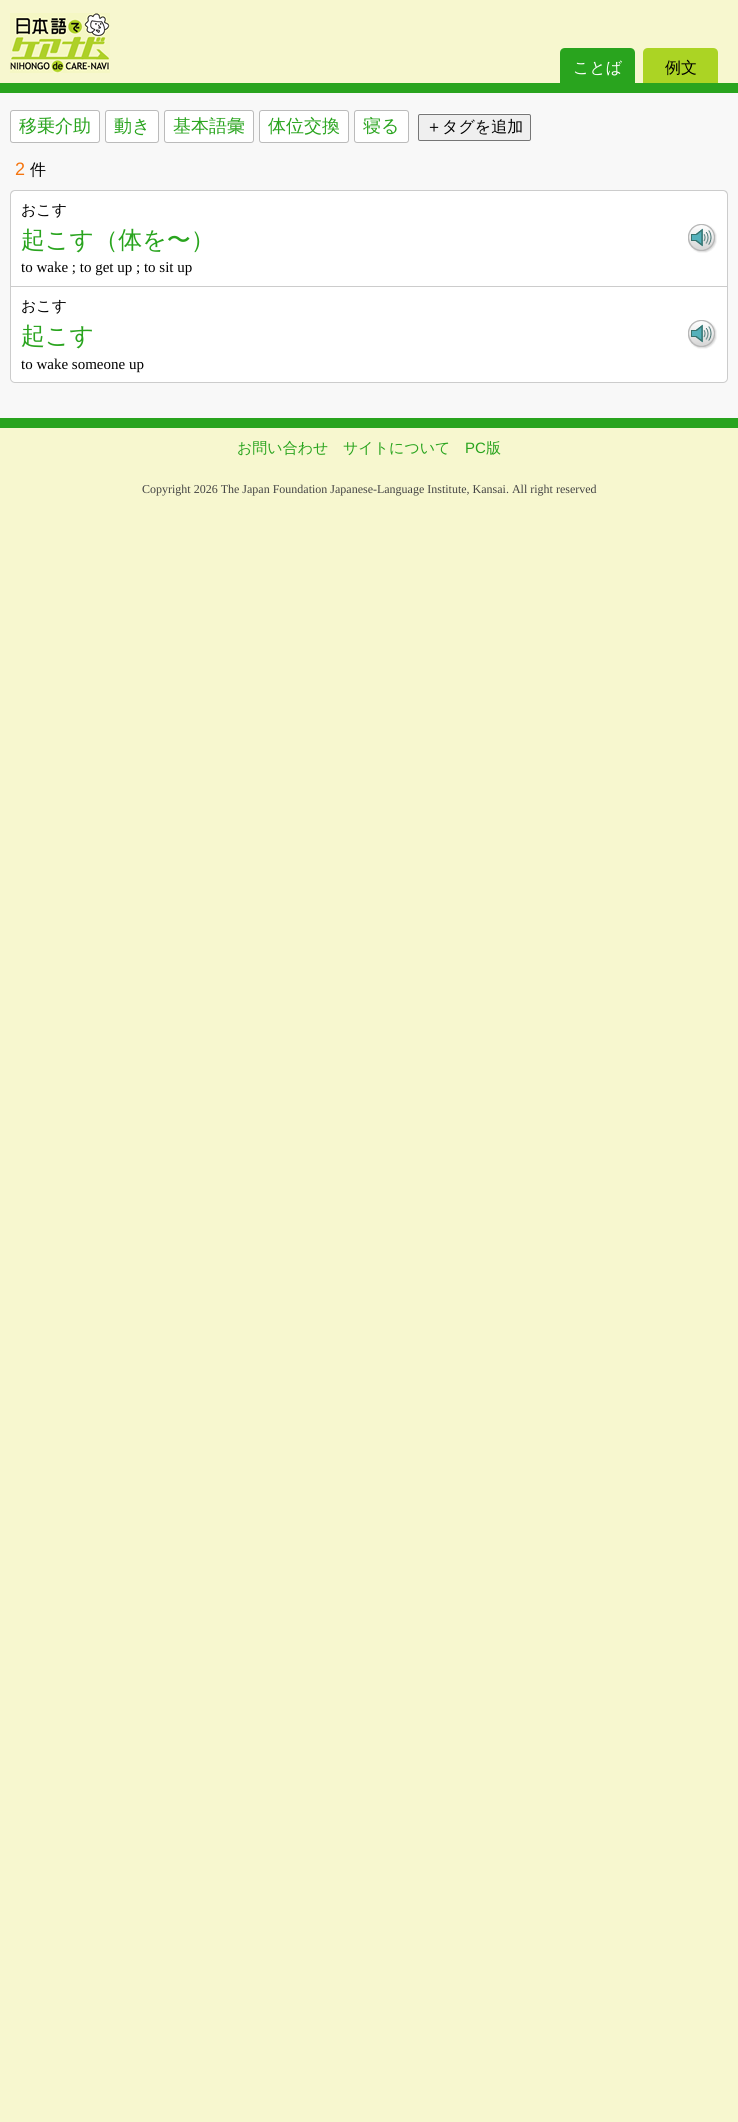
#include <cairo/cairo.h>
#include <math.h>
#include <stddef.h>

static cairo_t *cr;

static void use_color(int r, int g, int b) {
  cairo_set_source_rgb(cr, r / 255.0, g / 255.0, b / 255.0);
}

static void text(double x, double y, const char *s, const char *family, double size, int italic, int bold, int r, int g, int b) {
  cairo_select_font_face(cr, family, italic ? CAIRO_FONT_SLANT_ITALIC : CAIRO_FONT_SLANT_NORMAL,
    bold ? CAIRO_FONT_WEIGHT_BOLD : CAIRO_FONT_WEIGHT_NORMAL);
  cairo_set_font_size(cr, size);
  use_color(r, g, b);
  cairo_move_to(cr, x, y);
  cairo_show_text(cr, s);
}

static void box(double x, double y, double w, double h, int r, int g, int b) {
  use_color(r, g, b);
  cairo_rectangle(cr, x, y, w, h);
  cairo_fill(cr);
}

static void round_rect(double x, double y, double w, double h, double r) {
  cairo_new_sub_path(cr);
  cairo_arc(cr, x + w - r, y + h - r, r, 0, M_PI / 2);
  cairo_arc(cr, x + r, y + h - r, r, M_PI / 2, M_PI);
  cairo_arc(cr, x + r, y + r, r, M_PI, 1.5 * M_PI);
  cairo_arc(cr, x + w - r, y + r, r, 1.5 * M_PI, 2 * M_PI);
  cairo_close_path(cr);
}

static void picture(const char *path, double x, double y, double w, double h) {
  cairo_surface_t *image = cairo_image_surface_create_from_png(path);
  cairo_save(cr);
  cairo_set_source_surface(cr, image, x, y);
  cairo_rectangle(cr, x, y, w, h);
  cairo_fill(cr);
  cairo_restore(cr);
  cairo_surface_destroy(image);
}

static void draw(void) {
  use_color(247, 247, 207);
  cairo_paint(cr);
  picture("img_01.png", 10, 13, 100, 60);
  use_color(41, 164, 30);
  cairo_new_path(cr);
  cairo_move_to(cr, 565, 48);
  cairo_line_to(cr, 630, 48);
  cairo_curve_to(cr, 633, 48, 635, 50, 635, 53);
  cairo_line_to(cr, 635, 83);
  cairo_line_to(cr, 560, 83);
  cairo_line_to(cr, 560, 53);
  cairo_curve_to(cr, 560, 50, 562, 48, 565, 48);
  cairo_close_path(cr);
  cairo_fill(cr);
  use_color(171, 212, 36);
  cairo_new_path(cr);
  cairo_move_to(cr, 648, 48);
  cairo_line_to(cr, 713, 48);
  cairo_curve_to(cr, 716, 48, 718, 50, 718, 53);
  cairo_line_to(cr, 718, 83);
  cairo_line_to(cr, 643, 83);
  cairo_line_to(cr, 643, 53);
  cairo_curve_to(cr, 643, 50, 645, 48, 648, 48);
  cairo_close_path(cr);
  cairo_fill(cr);
  box(0, 93, 738, 325, 248, 248, 248);
  box(0, 83, 738, 10, 41, 164, 30);
  box(0, 418, 738, 10, 41, 164, 30);
  use_color(255, 255, 255);
  round_rect(10.5, 110.5, 89, 32, 2.5);
  cairo_fill_preserve(cr);
  use_color(187, 187, 187);
  cairo_set_line_width(cr, 1);
  cairo_stroke(cr);
  use_color(255, 255, 255);
  round_rect(105.5, 110.5, 53, 32, 2.5);
  cairo_fill_preserve(cr);
  use_color(187, 187, 187);
  cairo_stroke(cr);
  use_color(255, 255, 255);
  round_rect(164.5, 110.5, 89, 32, 2.5);
  cairo_fill_preserve(cr);
  use_color(187, 187, 187);
  cairo_stroke(cr);
  use_color(255, 255, 255);
  round_rect(259.5, 110.5, 89, 32, 2.5);
  cairo_fill_preserve(cr);
  use_color(187, 187, 187);
  cairo_stroke(cr);
  use_color(255, 255, 255);
  round_rect(354.5, 110.5, 54, 32, 2.5);
  cairo_fill_preserve(cr);
  use_color(187, 187, 187);
  cairo_stroke(cr);
  use_color(255, 255, 255);
  round_rect(418, 113, 113, 28, 3);
  cairo_fill(cr);
  use_color(239, 239, 239);
  round_rect(418.5, 114.5, 112, 26, 1.5);
  cairo_fill_preserve(cr);
  use_color(118, 118, 118);
  cairo_stroke(cr);
  use_color(255, 255, 255);
  cairo_new_path(cr);
  cairo_move_to(cr, 15, 190);
  cairo_line_to(cr, 723, 190);
  cairo_curve_to(cr, 726, 190, 728, 192, 728, 195);
  cairo_line_to(cr, 728, 286);
  cairo_line_to(cr, 10, 286);
  cairo_line_to(cr, 10, 195);
  cairo_curve_to(cr, 10, 192, 12, 190, 15, 190);
  cairo_close_path(cr);
  cairo_fill(cr);
  use_color(204, 204, 204);
  cairo_set_fill_rule(cr, CAIRO_FILL_RULE_EVEN_ODD);
  cairo_new_path(cr);
  cairo_move_to(cr, 15, 190);
  cairo_line_to(cr, 723, 190);
  cairo_curve_to(cr, 726, 190, 728, 192, 728, 195);
  cairo_line_to(cr, 728, 286);
  cairo_line_to(cr, 10, 286);
  cairo_line_to(cr, 10, 195);
  cairo_curve_to(cr, 10, 192, 12, 190, 15, 190);
  cairo_close_path(cr);
  cairo_move_to(cr, 15, 191);
  cairo_line_to(cr, 723, 191);
  cairo_curve_to(cr, 725, 191, 727, 193, 727, 195);
  cairo_line_to(cr, 727, 286);
  cairo_line_to(cr, 11, 286);
  cairo_line_to(cr, 11, 195);
  cairo_curve_to(cr, 11, 193, 13, 191, 15, 191);
  cairo_close_path(cr);
  cairo_fill(cr);
  picture("img_02.png", 688, 224, 29, 29);
  use_color(255, 255, 255);
  cairo_new_path(cr);
  cairo_move_to(cr, 10.5, 286.5);
  cairo_line_to(cr, 727.5, 286.5);
  cairo_line_to(cr, 727.5, 378);
  cairo_curve_to(cr, 727.5, 380.5, 725.5, 382.5, 723, 382.5);
  cairo_line_to(cr, 15, 382.5);
  cairo_curve_to(cr, 12.5, 382.5, 10.5, 380.5, 10.5, 378);
  cairo_close_path(cr);
  cairo_fill_preserve(cr);
  use_color(204, 204, 204);
  cairo_stroke(cr);
  picture("img_02.png", 688, 320, 29, 29);
  text(573, 73, "ことば", "WenQuanYi Zen Hei Medium", 16, 0, 0, 255, 255, 255);
  text(665, 73, "例文", "WenQuanYi Zen Hei Medium", 16, 0, 0, 0, 0, 0);
  text(19, 132, "移乗介助", "WenQuanYi Zen Hei Medium", 18, 0, 0, 41, 164, 30);
  text(114, 132, "動き", "WenQuanYi Zen Hei Medium", 18, 0, 0, 41, 164, 30);
  text(173, 132, "基本語彙", "WenQuanYi Zen Hei Medium", 18, 0, 0, 41, 164, 30);
  text(268, 132, "体位交換", "WenQuanYi Zen Hei Medium", 18, 0, 0, 41, 164, 30);
  text(363, 132, "寝る", "WenQuanYi Zen Hei Medium", 18, 0, 0, 41, 164, 30);
  text(426, 132, "＋タグを追加", "WenQuanYi Zen Hei Medium", 16, 0, 0, 0, 0, 0);
  text(15, 175, "2", "Liberation Sans", 18, 0, 0, 245, 117, 15);
  text(30, 175, "件", "WenQuanYi Zen Hei Medium", 16, 0, 0, 0, 0, 0);
  text(21, 215, "おこす", "WenQuanYi Zen Hei Medium", 15, 0, 0, 0, 0, 0);
  text(21, 248, "起こす（体を〜）", "WenQuanYi Zen Hei Medium", 24, 0, 0, 41, 164, 30);
  text(21, 272, "to wake ; to get up ; to sit up", "Liberation Serif", 15, 0, 0, 0, 0, 0);
  text(21, 311, "おこす", "WenQuanYi Zen Hei Medium", 15, 0, 0, 0, 0, 0);
  text(21, 344, "起こす", "WenQuanYi Zen Hei Medium", 24, 0, 0, 41, 164, 30);
  text(21, 369, "to wake someone up", "Liberation Serif", 15, 0, 0, 0, 0, 0);
  text(237, 453, "お問い合わせ", "WenQuanYi Zen Hei Medium", 15, 0, 0, 41, 164, 30);
  text(343, 453, "サイトについて", "WenQuanYi Zen Hei Medium", 15, 0, 0, 41, 164, 30);
  text(465, 453, "PC", "Liberation Sans", 15, 0, 0, 41, 164, 30);
  text(486, 453, "版", "WenQuanYi Zen Hei Medium", 15, 0, 0, 41, 164, 30);
  text(142, 493, "Copyright 2026 The Japan Foundation Japanese-Language Institute, Kansai. All right reserved", "Liberation Serif", 12, 0, 0, 68, 68, 68);
}

int main(void) {
  cairo_surface_t *surface = cairo_image_surface_create(CAIRO_FORMAT_RGB24, 738, 2122);
  cr = cairo_create(surface);
  cairo_font_options_t *options = cairo_font_options_create();
  cairo_font_options_set_hint_metrics(options, CAIRO_HINT_METRICS_OFF);
  cairo_font_options_set_hint_style(options, CAIRO_HINT_STYLE_NONE);
  cairo_set_font_options(cr, options);
  cairo_set_miter_limit(cr, 4);
  draw();
  cairo_surface_write_to_png(surface, "out.png");
  cairo_font_options_destroy(options);
  cairo_destroy(cr);
  cairo_surface_destroy(surface);
  return 0;
}
